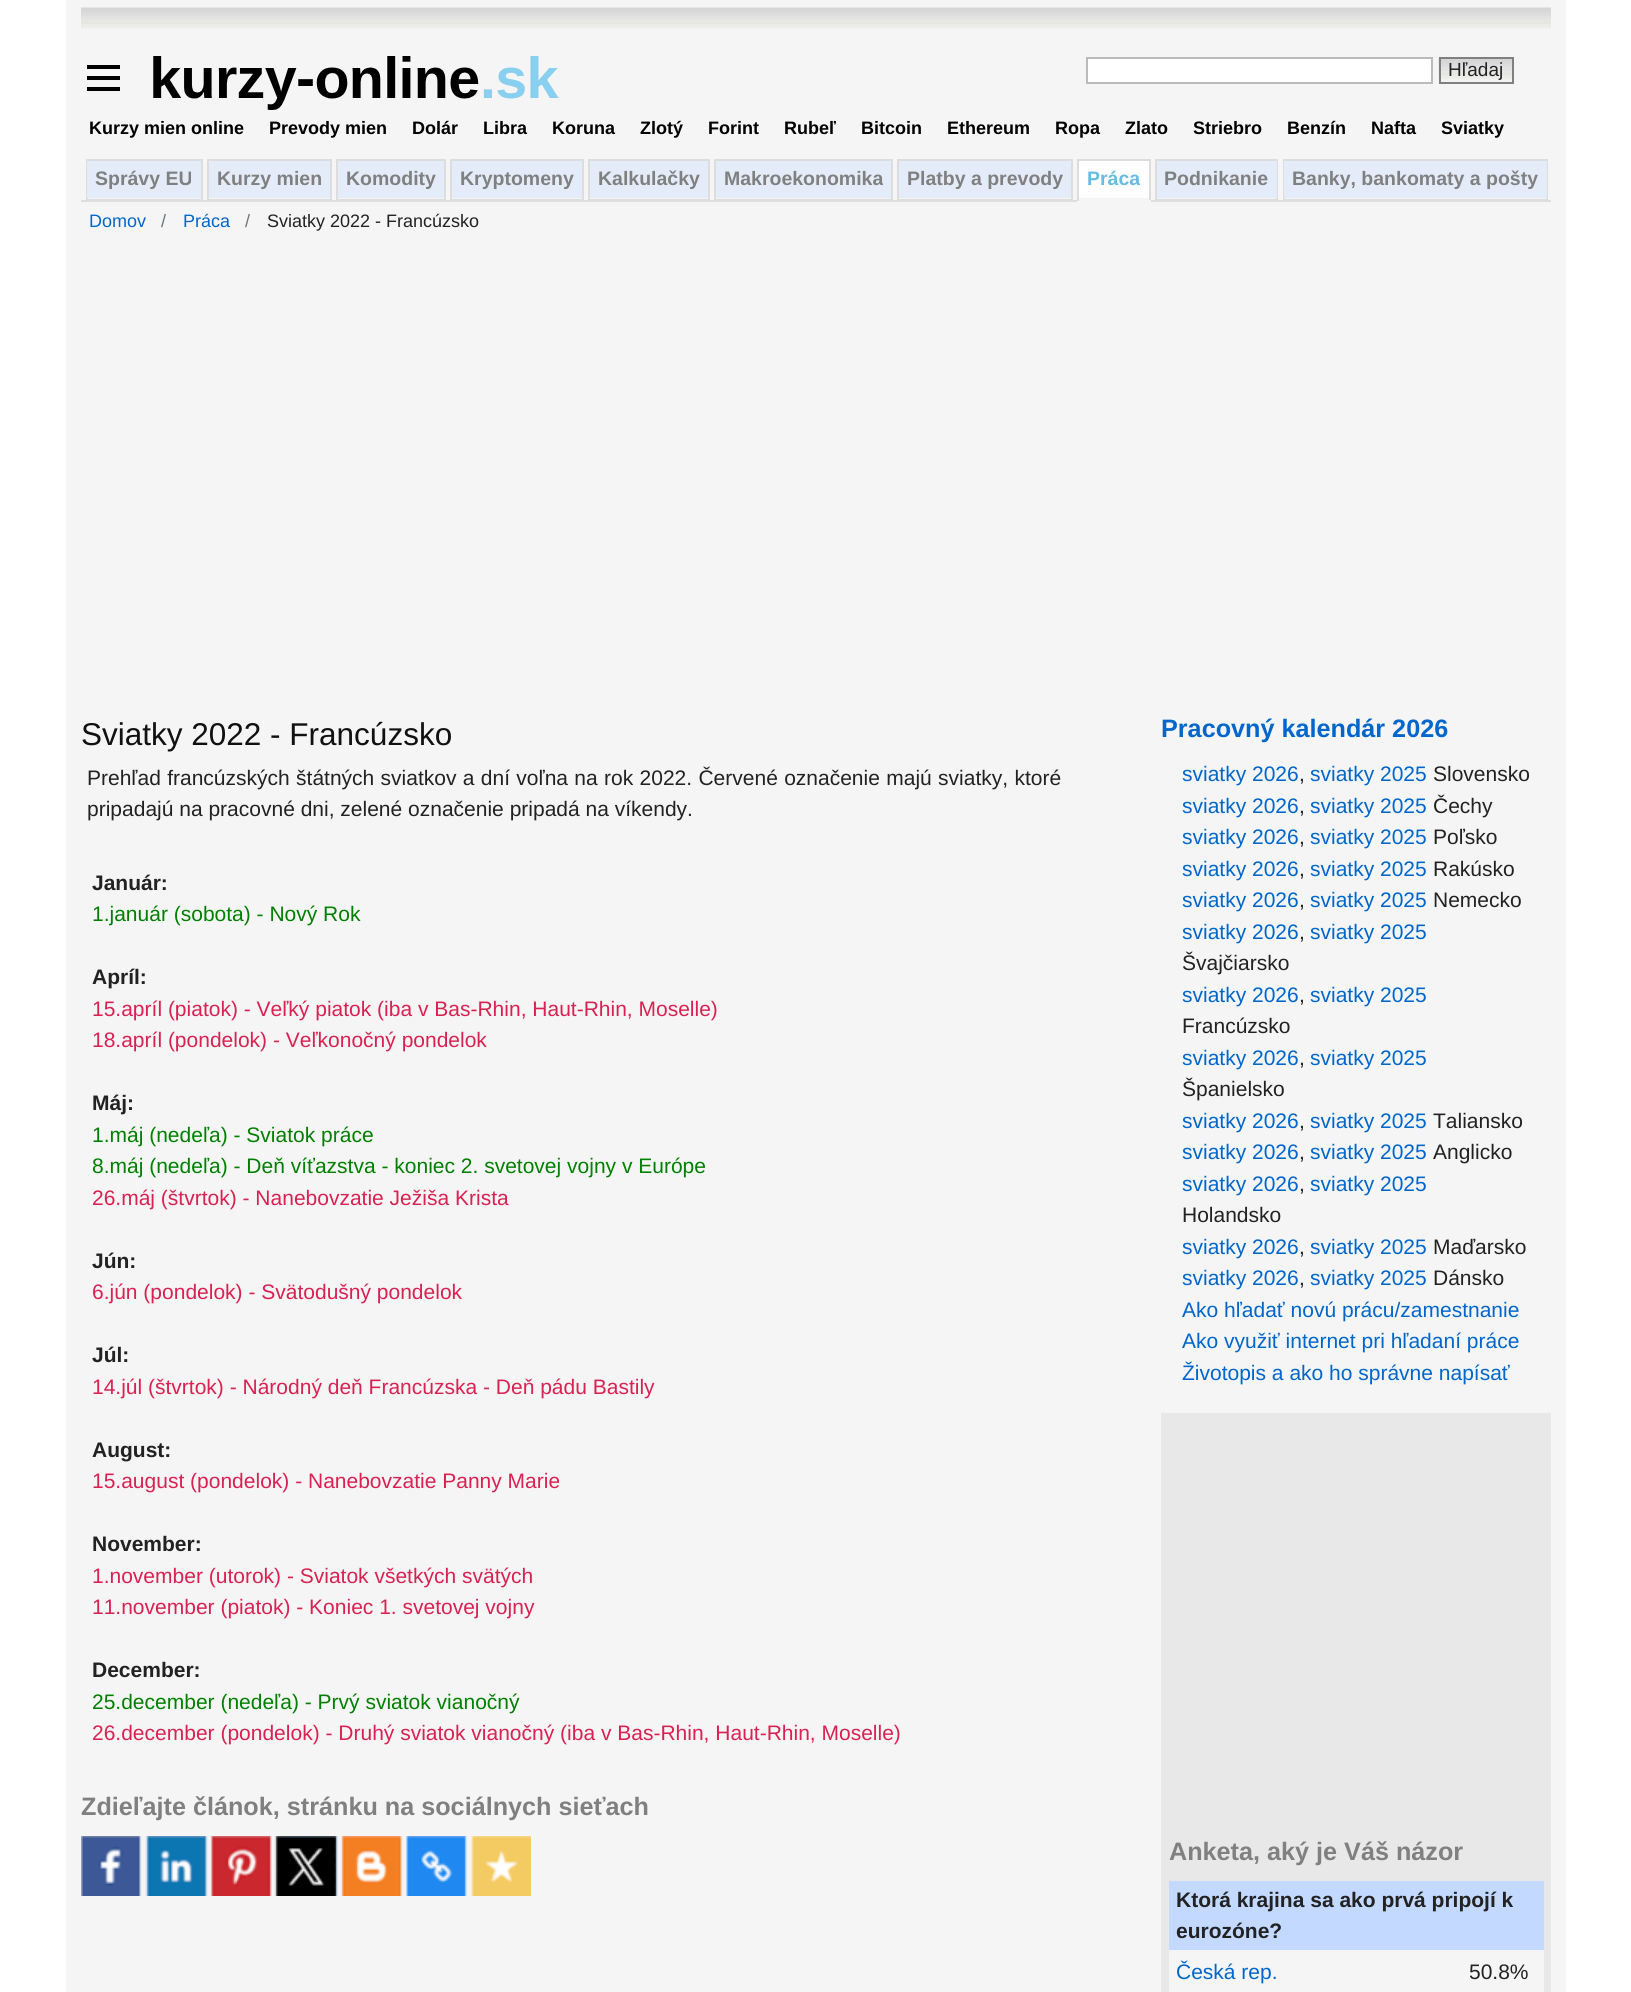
#include <cairo/cairo.h>
#include <math.h>
#include <stddef.h>

static cairo_t *cr;

static void use_color(int r, int g, int b) {
  cairo_set_source_rgb(cr, r / 255.0, g / 255.0, b / 255.0);
}

static void text(double x, double y, const char *s, const char *family, double size, int italic, int bold, int r, int g, int b) {
  cairo_select_font_face(cr, family, italic ? CAIRO_FONT_SLANT_ITALIC : CAIRO_FONT_SLANT_NORMAL,
    bold ? CAIRO_FONT_WEIGHT_BOLD : CAIRO_FONT_WEIGHT_NORMAL);
  cairo_set_font_size(cr, size);
  use_color(r, g, b);
  cairo_move_to(cr, x, y);
  cairo_show_text(cr, s);
}

static void spaced_text(double x, double y, const char *s, double letter, double word) {
  cairo_move_to(cr, x, y);
  while (*s) {
    char ch[5] = {0};
    int n = 0;
    do ch[n++] = *s++; while ((*s & 0xC0) == 0x80);
    cairo_show_text(cr, ch);
    cairo_rel_move_to(cr, letter + word * (*ch == ' '), 0);
  }
}

static void box(double x, double y, double w, double h, int r, int g, int b) {
  use_color(r, g, b);
  cairo_rectangle(cr, x, y, w, h);
  cairo_fill(cr);
}

static void picture(const char *path, double x, double y, double w, double h) {
  cairo_surface_t *image = cairo_image_surface_create_from_png(path);
  cairo_save(cr);
  cairo_set_source_surface(cr, image, x, y);
  cairo_rectangle(cr, x, y, w, h);
  cairo_fill(cr);
  cairo_restore(cr);
  cairo_surface_destroy(image);
}

static void draw(void) {
  use_color(255, 255, 255);
  cairo_paint(cr);
  box(66, 0, 1500, 1992, 245, 245, 245);
  picture("img_01.png", 81, 7, 1470, 22);
  box(87, 65, 33, 4, 0, 0, 0);
  box(87, 87, 33, 4, 0, 0, 0);
  box(87, 76, 33, 4, 0, 0, 0);
  picture("img_02.png", 153, 56, 406, 54);
  use_color(255, 255, 255);
  cairo_rectangle(cr, 1087, 58, 345, 25);
  cairo_fill_preserve(cr);
  use_color(187, 187, 187);
  cairo_stroke(cr);
  picture("img_03.png", 1438, 58, 74, 26);
  cairo_rectangle(cr, 1440, 58, 73, 25);
  use_color(128, 128, 128);
  cairo_stroke(cr);
  box(81, 200, 1470, 2, 221, 221, 221);
  cairo_rectangle(cr, 87, 160, 115, 40);
  cairo_stroke(cr);
  box(87, 161, 114, 37, 229, 236, 249);
  cairo_rectangle(cr, 208, 160, 123, 40);
  use_color(221, 221, 221);
  cairo_stroke(cr);
  box(209, 161, 121, 37, 229, 236, 249);
  cairo_rectangle(cr, 337, 160, 108, 40);
  use_color(221, 221, 221);
  cairo_stroke(cr);
  box(338, 161, 106, 37, 229, 236, 249);
  cairo_rectangle(cr, 451, 160, 132, 40);
  use_color(221, 221, 221);
  cairo_stroke(cr);
  box(452, 161, 130, 37, 229, 236, 249);
  cairo_rectangle(cr, 589, 160, 120, 40);
  use_color(221, 221, 221);
  cairo_stroke(cr);
  box(590, 161, 118, 37, 229, 236, 249);
  cairo_rectangle(cr, 715, 160, 177, 40);
  use_color(221, 221, 221);
  cairo_stroke(cr);
  box(716, 161, 175, 37, 229, 236, 249);
  cairo_rectangle(cr, 898, 160, 174, 40);
  use_color(221, 221, 221);
  cairo_stroke(cr);
  box(899, 161, 172, 37, 229, 236, 249);
  box(1079, 161, 70, 37, 255, 255, 255);
  box(1077, 159, 74, 2, 221, 221, 221);
  box(1149, 159, 2, 42, 221, 221, 221);
  box(1077, 200, 74, 2, 245, 245, 245);
  box(1077, 159, 2, 42, 221, 221, 221);
  cairo_rectangle(cr, 1156, 160, 121, 40);
  cairo_stroke(cr);
  box(1157, 161, 120, 37, 229, 236, 249);
  cairo_rectangle(cr, 1284, 160, 263, 40);
  use_color(221, 221, 221);
  cairo_stroke(cr);
  box(1284, 161, 263, 37, 229, 236, 249);
  picture("img_04.png", 81, 1836, 450, 60);
  box(1161, 1413, 390, 579, 232, 232, 232);
  box(1169, 1950, 375, 42, 245, 245, 245);
  box(1169, 1881, 375, 69, 195, 217, 255);
  text(1448, 76, "Hľadaj", "Liberation Sans", 19, 0, 0, 34, 34, 34);
  text(89, 134, "Kurzy mien online", "Liberation Sans", 18, 0, 1, 0, 0, 0);
  text(269, 134, "Prevody mien", "Liberation Sans", 18, 0, 1, 0, 0, 0);
  text(412, 134, "Dolár", "Liberation Sans", 18, 0, 1, 0, 0, 0);
  text(483, 134, "Libra", "Liberation Sans", 18, 0, 1, 0, 0, 0);
  text(552, 134, "Koruna", "Liberation Sans", 18, 0, 1, 0, 0, 0);
  text(640, 134, "Zlotý", "Liberation Sans", 18, 0, 1, 0, 0, 0);
  text(708, 134, "Forint", "Liberation Sans", 18, 0, 1, 0, 0, 0);
  text(784, 134, "Rubeľ", "Liberation Sans", 18, 0, 1, 0, 0, 0);
  text(861, 134, "Bitcoin", "Liberation Sans", 18, 0, 1, 0, 0, 0);
  text(947, 134, "Ethereum", "Liberation Sans", 18, 0, 1, 0, 0, 0);
  text(1055, 134, "Ropa", "Liberation Sans", 18, 0, 1, 0, 0, 0);
  text(1125, 134, "Zlato", "Liberation Sans", 18, 0, 1, 0, 0, 0);
  text(1193, 134, "Striebro", "Liberation Sans", 18, 0, 1, 0, 0, 0);
  text(1287, 134, "Benzín", "Liberation Sans", 18, 0, 1, 0, 0, 0);
  text(1371, 134, "Nafta", "Liberation Sans", 18, 0, 1, 0, 0, 0);
  text(1441, 134, "Sviatky", "Liberation Sans", 18, 0, 1, 0, 0, 0);
  text(95, 185, "Správy EU", "Liberation Sans", 19.5, 0, 1, 128, 128, 128);
  text(217, 185, "Kurzy mien", "Liberation Sans", 19.5, 0, 1, 128, 128, 128);
  text(346, 185, "Komodity", "Liberation Sans", 19.5, 0, 1, 128, 128, 128);
  text(460, 185, "Kryptomeny", "Liberation Sans", 19.5, 0, 1, 128, 128, 128);
  text(598, 185, "Kalkulačky", "Liberation Sans", 19.5, 0, 1, 128, 128, 128);
  text(724, 185, "Makroekonomika", "Liberation Sans", 19.5, 0, 1, 128, 128, 128);
  text(907, 185, "Platby a prevody", "Liberation Sans", 19.5, 0, 1, 128, 128, 128);
  text(1087, 185, "Práca", "Liberation Sans", 19.5, 0, 1, 102, 188, 225);
  text(1164, 185, "Podnikanie", "Liberation Sans", 19.5, 0, 1, 128, 128, 128);
  text(1292, 185, "Banky, bankomaty a pošty", "Liberation Sans", 19.5, 0, 1, 128, 128, 128);
  text(89, 227, "Domov", "Liberation Sans", 18, 0, 0, 0, 102, 204);
  text(161, 227, "/", "Liberation Sans", 18, 0, 0, 108, 117, 125);
  text(183, 227, "Práca", "Liberation Sans", 18, 0, 0, 0, 102, 204);
  text(245, 227, "/", "Liberation Sans", 18, 0, 0, 108, 117, 125);
  text(267, 227, "Sviatky 2022 - Francúzsko", "Liberation Sans", 18, 0, 0, 34, 34, 34);
  text(81, 745, "Sviatky 2022 - Francúzsko", "Liberation Sans", 31.5, 0, 0, 17, 17, 17);
  cairo_set_font_size(cr, 21);
  use_color(34, 34, 34);
  spaced_text(87, 785, "Prehľad francúzských štátných sviatkov a dní voľna na rok 2022. Červené označenie majú sviatky, ktoré", 0, 0.5);
  text(87, 816, "pripadajú na pracovné dni, zelené označenie pripadá na víkendy.", "Liberation Sans", 21, 0, 0, 34, 34, 34);
  text(92, 890, "Január:", "Liberation Sans", 21, 0, 1, 34, 34, 34);
  text(92, 921, "1.január (sobota) - Nový Rok", "Liberation Sans", 21, 0, 0, 0, 128, 0);
  text(92, 984, "Apríl:", "Liberation Sans", 21, 0, 1, 34, 34, 34);
  text(92, 1016, "15.apríl (piatok) - Veľký piatok (iba v Bas-Rhin, Haut-Rhin, Moselle)", "Liberation Sans", 21, 0, 0, 217, 33, 82);
  text(92, 1047, "18.apríl (pondelok) - Veľkonočný pondelok", "Liberation Sans", 21, 0, 0, 217, 33, 82);
  text(92, 1110, "Máj:", "Liberation Sans", 21, 0, 1, 34, 34, 34);
  text(92, 1142, "1.máj (nedeľa) - Sviatok práce", "Liberation Sans", 21, 0, 0, 0, 128, 0);
  text(92, 1173, "8.máj (nedeľa) - Deň víťazstva - koniec 2. svetovej vojny v Európe", "Liberation Sans", 21, 0, 0, 0, 128, 0);
  text(92, 1205, "26.máj (štvrtok) - Nanebovzatie Ježiša Krista", "Liberation Sans", 21, 0, 0, 217, 33, 82);
  text(92, 1268, "Jún:", "Liberation Sans", 21, 0, 1, 34, 34, 34);
  text(92, 1299, "6.jún (pondelok) - Svätodušný pondelok", "Liberation Sans", 21, 0, 0, 217, 33, 82);
  text(92, 1362, "Júl:", "Liberation Sans", 21, 0, 1, 34, 34, 34);
  text(92, 1394, "14.júl (štvrtok) - Národný deň Francúzska - Deň pádu Bastily", "Liberation Sans", 21, 0, 0, 217, 33, 82);
  text(92, 1457, "August:", "Liberation Sans", 21, 0, 1, 34, 34, 34);
  text(92, 1488, "15.august (pondelok) - Nanebovzatie Panny Marie", "Liberation Sans", 21, 0, 0, 217, 33, 82);
  text(92, 1551, "November:", "Liberation Sans", 21, 0, 1, 34, 34, 34);
  text(92, 1583, "1.november (utorok) - Sviatok všetkých svätých", "Liberation Sans", 21, 0, 0, 217, 33, 82);
  text(92, 1614, "11.november (piatok) - Koniec 1. svetovej vojny", "Liberation Sans", 21, 0, 0, 217, 33, 82);
  text(92, 1677, "December:", "Liberation Sans", 21, 0, 1, 34, 34, 34);
  text(92, 1709, "25.december (nedeľa) - Prvý sviatok vianočný", "Liberation Sans", 21, 0, 0, 0, 128, 0);
  text(92, 1740, "26.december (pondelok) - Druhý sviatok vianočný (iba v Bas-Rhin, Haut-Rhin, Moselle)", "Liberation Sans", 21, 0, 0, 217, 33, 82);
  text(81, 1815, "Zdieľajte článok, stránku na sociálnych sieťach", "Liberation Sans", 25.2, 0, 1, 128, 128, 128);
  text(1161, 737, "Pracovný kalendár 2026", "Liberation Sans", 25.2, 0, 1, 0, 102, 204);
  text(1182, 781, "sviatky 2026", "Liberation Sans", 21, 0, 0, 0, 102, 204);
  text(1299, 781, ",", "Liberation Sans", 21, 0, 0, 34, 34, 34);
  text(1310, 781, "sviatky 2025", "Liberation Sans", 21, 0, 0, 0, 102, 204);
  text(1433, 781, "Slovensko", "Liberation Sans", 21, 0, 0, 34, 34, 34);
  text(1182, 813, "sviatky 2026", "Liberation Sans", 21, 0, 0, 0, 102, 204);
  text(1299, 813, ",", "Liberation Sans", 21, 0, 0, 34, 34, 34);
  text(1310, 813, "sviatky 2025", "Liberation Sans", 21, 0, 0, 0, 102, 204);
  text(1433, 813, "Čechy", "Liberation Sans", 21, 0, 0, 34, 34, 34);
  text(1182, 844, "sviatky 2026", "Liberation Sans", 21, 0, 0, 0, 102, 204);
  text(1299, 844, ",", "Liberation Sans", 21, 0, 0, 34, 34, 34);
  text(1310, 844, "sviatky 2025", "Liberation Sans", 21, 0, 0, 0, 102, 204);
  text(1433, 844, "Poľsko", "Liberation Sans", 21, 0, 0, 34, 34, 34);
  text(1182, 876, "sviatky 2026", "Liberation Sans", 21, 0, 0, 0, 102, 204);
  text(1299, 876, ",", "Liberation Sans", 21, 0, 0, 34, 34, 34);
  text(1310, 876, "sviatky 2025", "Liberation Sans", 21, 0, 0, 0, 102, 204);
  text(1433, 876, "Rakúsko", "Liberation Sans", 21, 0, 0, 34, 34, 34);
  text(1182, 907, "sviatky 2026", "Liberation Sans", 21, 0, 0, 0, 102, 204);
  text(1299, 907, ",", "Liberation Sans", 21, 0, 0, 34, 34, 34);
  text(1310, 907, "sviatky 2025", "Liberation Sans", 21, 0, 0, 0, 102, 204);
  text(1433, 907, "Nemecko", "Liberation Sans", 21, 0, 0, 34, 34, 34);
  text(1182, 939, "sviatky 2026", "Liberation Sans", 21, 0, 0, 0, 102, 204);
  text(1299, 939, ",", "Liberation Sans", 21, 0, 0, 34, 34, 34);
  text(1310, 939, "sviatky 2025", "Liberation Sans", 21, 0, 0, 0, 102, 204);
  text(1182, 970, "Švajčiarsko", "Liberation Sans", 21, 0, 0, 34, 34, 34);
  text(1182, 1002, "sviatky 2026", "Liberation Sans", 21, 0, 0, 0, 102, 204);
  text(1299, 1002, ",", "Liberation Sans", 21, 0, 0, 34, 34, 34);
  text(1310, 1002, "sviatky 2025", "Liberation Sans", 21, 0, 0, 0, 102, 204);
  text(1182, 1033, "Francúzsko", "Liberation Sans", 21, 0, 0, 34, 34, 34);
  text(1182, 1065, "sviatky 2026", "Liberation Sans", 21, 0, 0, 0, 102, 204);
  text(1299, 1065, ",", "Liberation Sans", 21, 0, 0, 34, 34, 34);
  text(1310, 1065, "sviatky 2025", "Liberation Sans", 21, 0, 0, 0, 102, 204);
  text(1182, 1096, "Španielsko", "Liberation Sans", 21, 0, 0, 34, 34, 34);
  text(1182, 1128, "sviatky 2026", "Liberation Sans", 21, 0, 0, 0, 102, 204);
  text(1299, 1128, ",", "Liberation Sans", 21, 0, 0, 34, 34, 34);
  text(1310, 1128, "sviatky 2025", "Liberation Sans", 21, 0, 0, 0, 102, 204);
  text(1433, 1128, "Taliansko", "Liberation Sans", 21, 0, 0, 34, 34, 34);
  text(1182, 1159, "sviatky 2026", "Liberation Sans", 21, 0, 0, 0, 102, 204);
  text(1299, 1159, ",", "Liberation Sans", 21, 0, 0, 34, 34, 34);
  text(1310, 1159, "sviatky 2025", "Liberation Sans", 21, 0, 0, 0, 102, 204);
  text(1433, 1159, "Anglicko", "Liberation Sans", 21, 0, 0, 34, 34, 34);
  text(1182, 1191, "sviatky 2026", "Liberation Sans", 21, 0, 0, 0, 102, 204);
  text(1299, 1191, ",", "Liberation Sans", 21, 0, 0, 34, 34, 34);
  text(1310, 1191, "sviatky 2025", "Liberation Sans", 21, 0, 0, 0, 102, 204);
  text(1182, 1222, "Holandsko", "Liberation Sans", 21, 0, 0, 34, 34, 34);
  text(1182, 1254, "sviatky 2026", "Liberation Sans", 21, 0, 0, 0, 102, 204);
  text(1299, 1254, ",", "Liberation Sans", 21, 0, 0, 34, 34, 34);
  text(1310, 1254, "sviatky 2025", "Liberation Sans", 21, 0, 0, 0, 102, 204);
  text(1433, 1254, "Maďarsko", "Liberation Sans", 21, 0, 0, 34, 34, 34);
  text(1182, 1285, "sviatky 2026", "Liberation Sans", 21, 0, 0, 0, 102, 204);
  text(1299, 1285, ",", "Liberation Sans", 21, 0, 0, 34, 34, 34);
  text(1310, 1285, "sviatky 2025", "Liberation Sans", 21, 0, 0, 0, 102, 204);
  text(1433, 1285, "Dánsko", "Liberation Sans", 21, 0, 0, 34, 34, 34);
  text(1182, 1317, "Ako hľadať novú prácu/zamestnanie", "Liberation Sans", 21, 0, 0, 0, 102, 204);
  text(1182, 1348, "Ako využiť internet pri hľadaní práce", "Liberation Sans", 21, 0, 0, 0, 102, 204);
  text(1182, 1380, "Životopis a ako ho správne napísať", "Liberation Sans", 21, 0, 0, 0, 102, 204);
  text(1169, 1860, "Anketa, aký je Váš názor", "Liberation Sans", 25.2, 0, 1, 128, 128, 128);
  text(1176, 1907, "Ktorá krajina sa ako prvá pripojí k", "Liberation Sans", 21, 0, 1, 34, 34, 34);
  text(1176, 1938, "eurozóne?", "Liberation Sans", 21, 0, 1, 34, 34, 34);
  text(1176, 1979, "Česká rep.", "Liberation Sans", 21, 0, 0, 0, 102, 204);
  text(1469, 1979, "50.8%", "Liberation Sans", 21, 0, 0, 34, 34, 34);
}

int main(void) {
  cairo_surface_t *surface = cairo_image_surface_create(CAIRO_FORMAT_RGB24, 1631, 1992);
  cr = cairo_create(surface);
  cairo_font_options_t *options = cairo_font_options_create();
  cairo_font_options_set_hint_metrics(options, CAIRO_HINT_METRICS_OFF);
  cairo_font_options_set_hint_style(options, CAIRO_HINT_STYLE_NONE);
  cairo_set_font_options(cr, options);
  cairo_set_miter_limit(cr, 4);
  draw();
  cairo_surface_write_to_png(surface, "out.png");
  cairo_font_options_destroy(options);
  cairo_destroy(cr);
  cairo_surface_destroy(surface);
  return 0;
}
